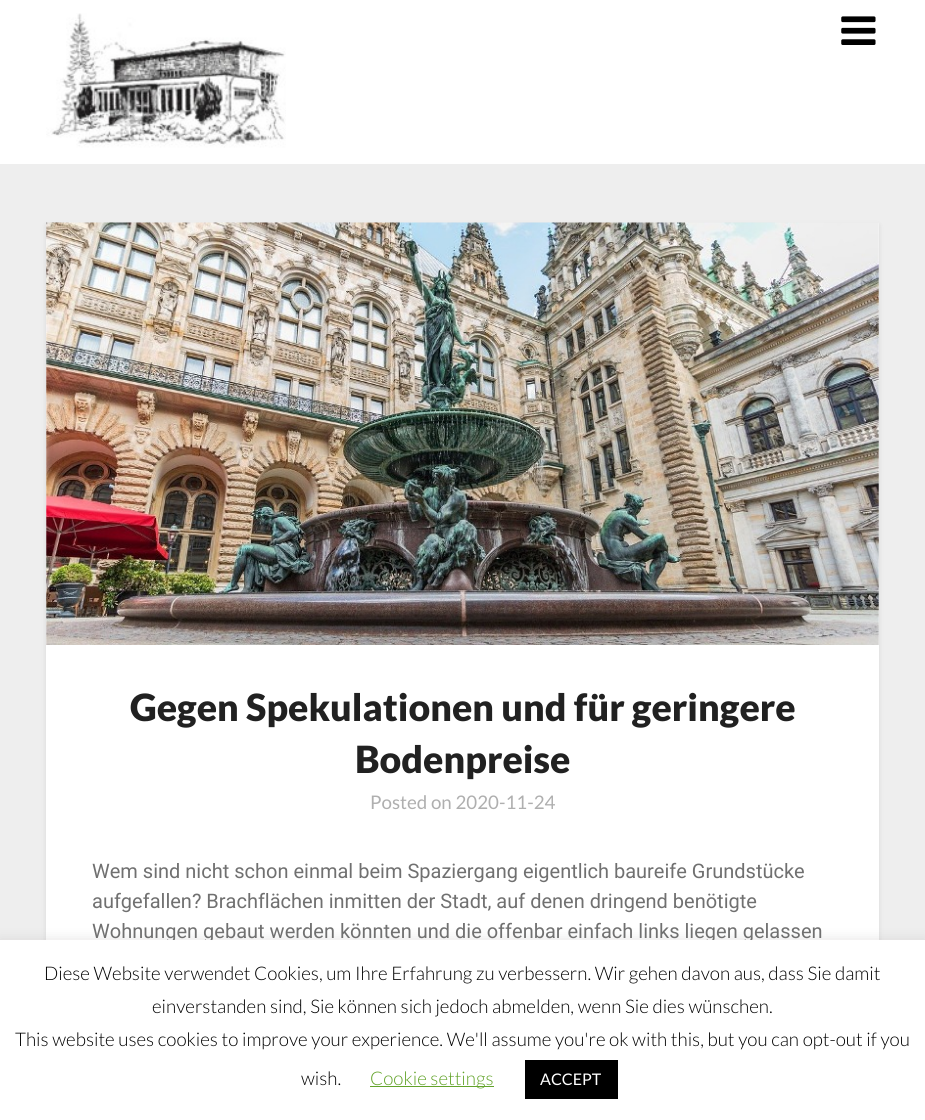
#include <cairo/cairo.h>
#include <math.h>
#include <stddef.h>

static cairo_t *cr;

static void use_color(int r, int g, int b) {
  cairo_set_source_rgb(cr, r / 255.0, g / 255.0, b / 255.0);
}

static void text(double x, double y, const char *s, const char *family, double size, int italic, int bold, int r, int g, int b) {
  cairo_select_font_face(cr, family, italic ? CAIRO_FONT_SLANT_ITALIC : CAIRO_FONT_SLANT_NORMAL,
    bold ? CAIRO_FONT_WEIGHT_BOLD : CAIRO_FONT_WEIGHT_NORMAL);
  cairo_set_font_size(cr, size);
  use_color(r, g, b);
  cairo_move_to(cr, x, y);
  cairo_show_text(cr, s);
}

static void box(double x, double y, double w, double h, int r, int g, int b) {
  use_color(r, g, b);
  cairo_rectangle(cr, x, y, w, h);
  cairo_fill(cr);
}

static void round_rect(double x, double y, double w, double h, double r) {
  cairo_new_sub_path(cr);
  cairo_arc(cr, x + w - r, y + h - r, r, 0, M_PI / 2);
  cairo_arc(cr, x + r, y + h - r, r, M_PI / 2, M_PI);
  cairo_arc(cr, x + r, y + r, r, M_PI, 1.5 * M_PI);
  cairo_arc(cr, x + w - r, y + r, r, 1.5 * M_PI, 2 * M_PI);
  cairo_close_path(cr);
}

static void shadow(double x, double y, double w, double h, double r, double blur, double alpha) {
  cairo_push_group_with_content(cr, CAIRO_CONTENT_ALPHA);
  cairo_set_operator(cr, CAIRO_OPERATOR_SOURCE);
  for (int i = 15; i >= -15 && fmin(w, h) + blur * i / 3 > 0; i -= 2) {
    double e = blur * i / 6;
    cairo_set_source_rgba(cr, 0, 0, 0, alpha * erfc((i - 1) / 8.5) / 2);
    round_rect(x - e, y - e, w + 2 * e, h + 2 * e, fmax(0, fmin(r + e + blur * .6, fmin(w, h) / 2 + e)));
    cairo_fill(cr);
  }
  cairo_pattern_t *soft = cairo_pop_group(cr);
  cairo_mask(cr, soft);
  cairo_pattern_destroy(soft);
}

static void picture(const char *path, double x, double y, double w, double h) {
  cairo_surface_t *image = cairo_image_surface_create_from_png(path);
  cairo_save(cr);
  cairo_set_source_surface(cr, image, x, y);
  cairo_rectangle(cr, x, y, w, h);
  cairo_fill(cr);
  cairo_restore(cr);
  cairo_surface_destroy(image);
}

static void draw(void) {
  use_color(238, 238, 238);
  cairo_paint(cr);
  box(0, 0, 925, 164, 255, 255, 255);
  picture("img_01.png", 46, 13, 240, 135);
  picture("img_02.png", 841, 16, 35, 29);
  use_color(0, 0, 0);
  shadow(46, 225, 833, 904, 1, 2.5, 0.1);
  use_color(255, 255, 255);
  round_rect(46, 223, 833, 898, 1);
  cairo_fill(cr);
  picture("img_03.png", 46, 222, 833, 423);
  use_color(172, 171, 171);
  shadow(0, 939, 925, 180, 0, 6, 0.3);
  text(130, 721, "Gegen Spekulationen und für geringere", "Lato Black", 37.5, 0, 0, 33, 33, 33);
  text(355, 773, "Bodenpreise", "Lato Black", 37.5, 0, 0, 33, 33, 33);
  text(370, 809, "Posted on 2020-11-24", "Lato", 18.75, 0, 0, 175, 175, 175);
  text(92, 878, "Wem sind nicht schon einmal beim Spaziergang eigentlich baureife Grundstücke", "Roboto", 20, 0, 0, 112, 112, 112);
  text(92, 908, "aufgefallen? Brachflächen inmitten der Stadt, auf denen dringend benötigte", "Roboto", 20, 0, 0, 112, 112, 112);
  text(92, 938, "Wohnungen gebaut werden könnten und die offenbar einfach links liegen gelassen", "Roboto", 20, 0, 0, 112, 112, 112);
  box(0, 940, 925, 180, 255, 255, 255);
  text(44, 980, "Diese Website verwendet Cookies, um Ihre Erfahrung zu verbessern. Wir gehen davon aus, dass Sie damit", "Lato Light", 18.75, 0, 0, 0, 0, 0);
  text(152, 1013, "einverstanden sind, Sie können sich jedoch abmelden, wenn Sie dies wünschen.", "Lato Light", 18.75, 0, 0, 0, 0, 0);
  text(15, 1046, "This website uses cookies to improve your experience. We'll assume you're ok with this, but you can opt-out if you", "Lato Light", 18.75, 0, 0, 0, 0, 0);
  text(301, 1085, "wish.", "Lato Light", 18.75, 0, 0, 0, 0, 0);
  box(370, 1086, 124, 1, 98, 163, 41);
  text(370, 1085, "Cookie settings", "Lato Light", 18.75, 0, 0, 98, 163, 41);
  box(525, 1060, 93, 39, 0, 0, 0);
  text(540, 1085, "ACCEPT", "Lato", 16, 0, 0, 255, 255, 255);
}

int main(void) {
  cairo_surface_t *surface = cairo_image_surface_create(CAIRO_FORMAT_RGB24, 925, 1120);
  cr = cairo_create(surface);
  cairo_font_options_t *options = cairo_font_options_create();
  cairo_font_options_set_hint_metrics(options, CAIRO_HINT_METRICS_OFF);
  cairo_font_options_set_hint_style(options, CAIRO_HINT_STYLE_NONE);
  cairo_set_font_options(cr, options);
  cairo_set_miter_limit(cr, 4);
  draw();
  cairo_surface_write_to_png(surface, "out.png");
  cairo_font_options_destroy(options);
  cairo_destroy(cr);
  cairo_surface_destroy(surface);
  return 0;
}
